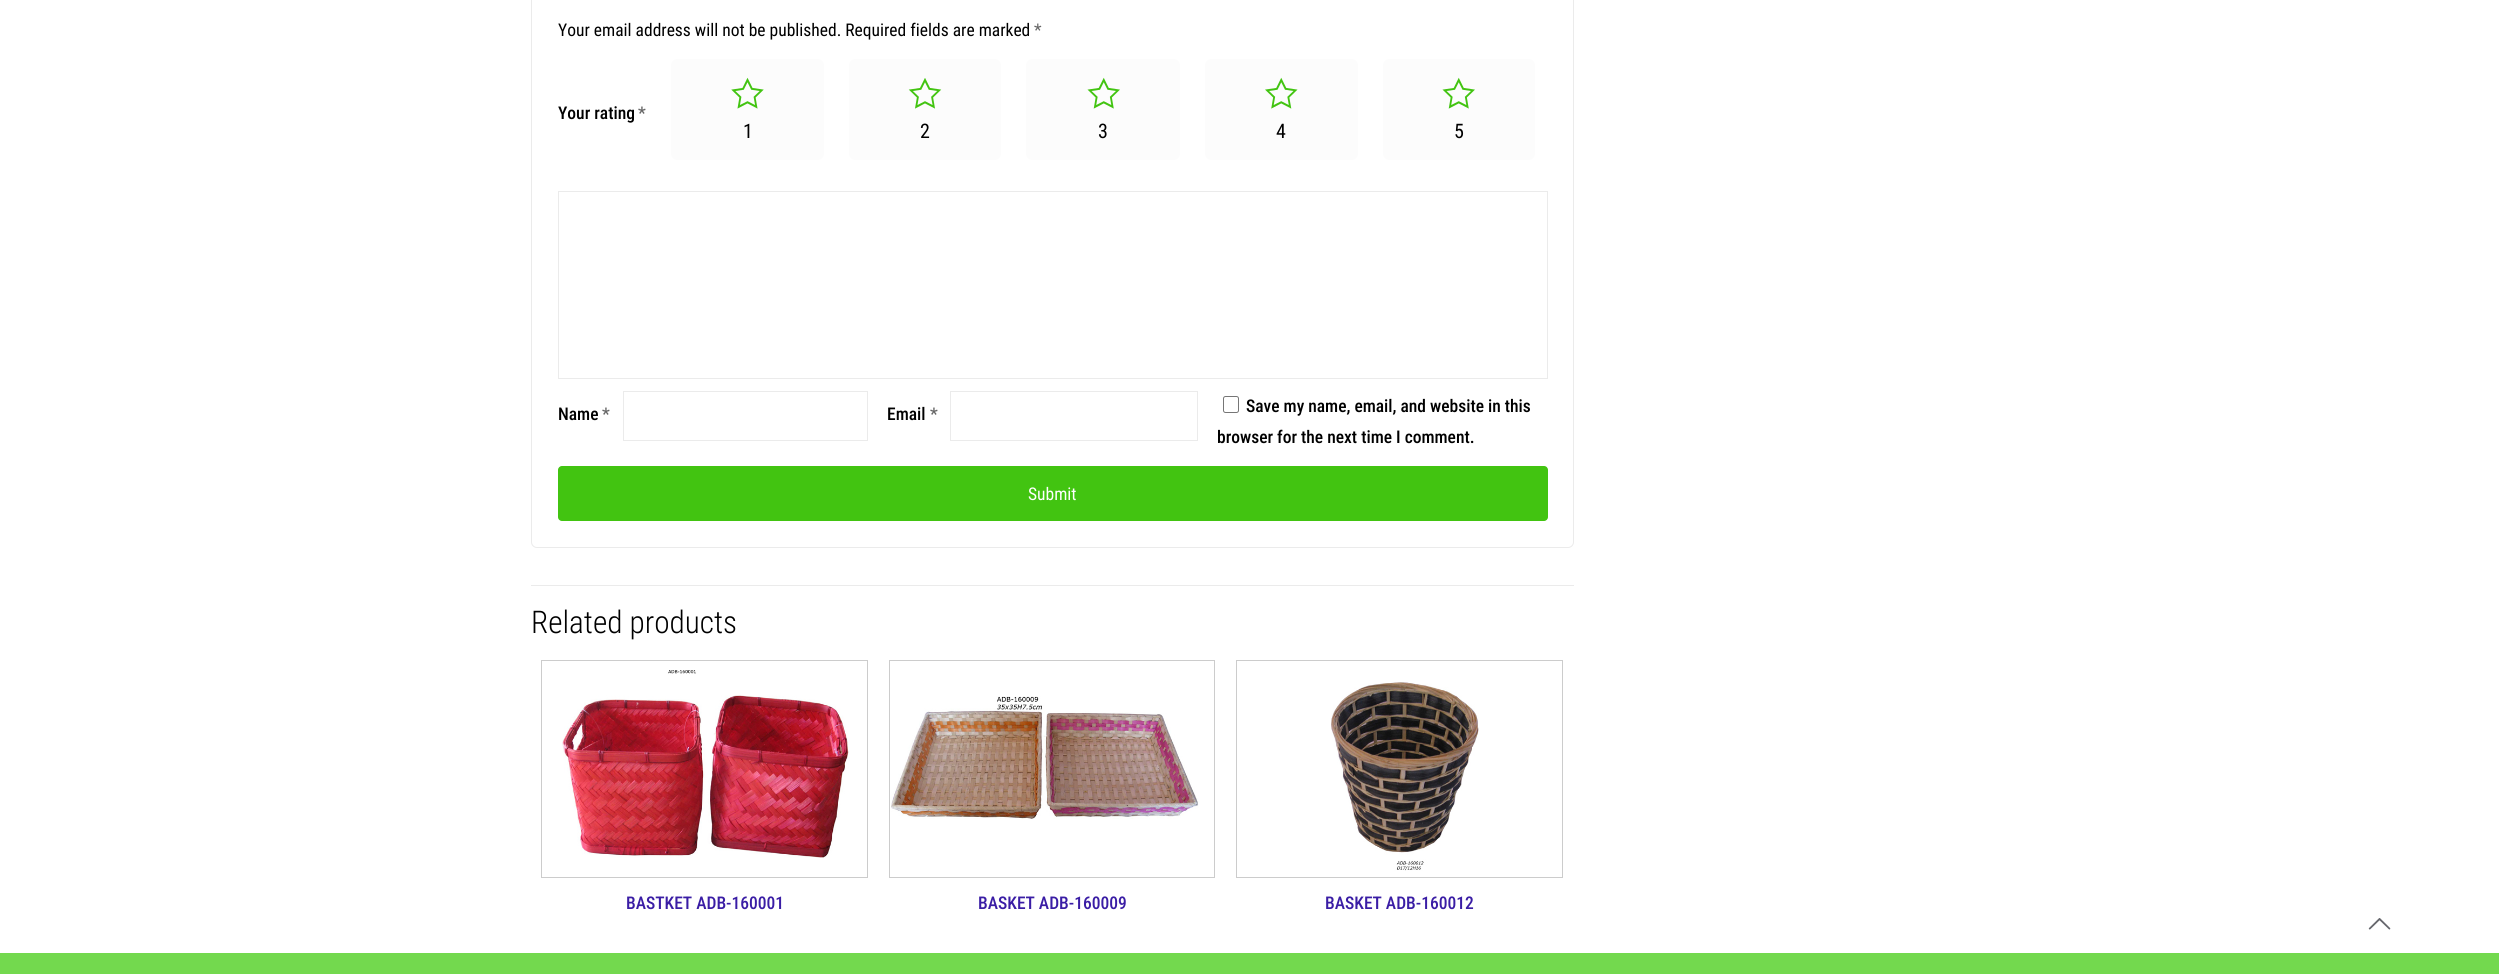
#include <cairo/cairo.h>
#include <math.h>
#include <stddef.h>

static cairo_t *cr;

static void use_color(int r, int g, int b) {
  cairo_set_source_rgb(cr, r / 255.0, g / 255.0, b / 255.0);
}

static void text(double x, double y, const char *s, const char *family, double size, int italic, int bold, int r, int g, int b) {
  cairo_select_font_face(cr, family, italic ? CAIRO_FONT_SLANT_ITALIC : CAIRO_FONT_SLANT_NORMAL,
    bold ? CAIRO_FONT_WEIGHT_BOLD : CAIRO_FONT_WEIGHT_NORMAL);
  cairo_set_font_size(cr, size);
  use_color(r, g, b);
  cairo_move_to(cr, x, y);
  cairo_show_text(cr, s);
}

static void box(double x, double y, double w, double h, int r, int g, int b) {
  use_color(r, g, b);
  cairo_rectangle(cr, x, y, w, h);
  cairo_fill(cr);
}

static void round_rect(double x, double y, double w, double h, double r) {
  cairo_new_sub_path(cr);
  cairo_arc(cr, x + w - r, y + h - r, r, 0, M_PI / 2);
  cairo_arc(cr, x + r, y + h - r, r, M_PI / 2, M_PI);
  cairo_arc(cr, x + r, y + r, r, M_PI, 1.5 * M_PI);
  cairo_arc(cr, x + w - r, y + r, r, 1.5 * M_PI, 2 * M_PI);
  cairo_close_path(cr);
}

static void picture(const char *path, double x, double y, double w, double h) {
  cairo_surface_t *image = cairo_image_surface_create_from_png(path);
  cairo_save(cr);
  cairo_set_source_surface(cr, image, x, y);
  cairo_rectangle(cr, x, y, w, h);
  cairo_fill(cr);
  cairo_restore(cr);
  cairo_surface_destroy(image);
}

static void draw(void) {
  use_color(255, 255, 255);
  cairo_paint(cr);
  round_rect(531.5, -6.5, 1042, 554, 5.5);
  use_color(235, 235, 235);
  cairo_set_line_width(cr, 1);
  cairo_stroke(cr);
  use_color(252, 252, 252);
  round_rect(671, 59, 153, 101, 6);
  cairo_fill(cr);
  picture("img_01.png", 731, 77, 33, 32);
  round_rect(849, 59, 152, 101, 6);
  cairo_fill(cr);
  picture("img_02.png", 908, 78, 34, 31);
  round_rect(1026, 59, 154, 101, 6);
  cairo_fill(cr);
  picture("img_03.png", 1087, 77, 33, 32);
  round_rect(1205, 59, 153, 101, 6);
  cairo_fill(cr);
  picture("img_04.png", 1265, 77, 33, 32);
  round_rect(1383, 59, 152, 101, 6);
  cairo_fill(cr);
  picture("img_03.png", 1442, 77, 33, 32);
  cairo_rectangle(cr, 558.5, 191.5, 989, 187);
  use_color(235, 235, 235);
  cairo_stroke(cr);
  cairo_rectangle(cr, 623.5, 391.5, 244, 49);
  cairo_stroke(cr);
  cairo_rectangle(cr, 950.5, 391.5, 247, 49);
  cairo_stroke(cr);
  round_rect(1223.5, 396.5, 15, 16, 2);
  use_color(118, 118, 118);
  cairo_stroke(cr);
  use_color(66, 196, 17);
  round_rect(558, 466, 990, 55, 4);
  cairo_fill(cr);
  box(531, 585, 1043, 1, 235, 235, 235);
  cairo_rectangle(cr, 541.5, 660.5, 326, 217);
  use_color(204, 204, 204);
  cairo_stroke(cr);
  picture("img_05.png", 562, 670, 288, 188);
  cairo_rectangle(cr, 889.5, 660.5, 325, 217);
  cairo_stroke(cr);
  picture("img_06.png", 891, 696, 308, 123);
  cairo_rectangle(cr, 1236.5, 660.5, 326, 217);
  cairo_stroke(cr);
  picture("img_07.png", 1331, 682, 148, 189);
  box(0, 953, 2499, 21, 115, 217, 78);
  picture("img_08.png", 2368, 918, 23, 12);
  text(558, 36, "Your email address will not be published. Required fields are marked", "Roboto Condensed", 17.5, 0, 0, 0, 0, 0);
  text(1034, 36, "*", "Roboto Condensed", 17.5, 0, 0, 102, 102, 102);
  text(558, 119, "Your rating", "Roboto Condensed Medium", 17.5, 0, 0, 0, 0, 0);
  text(638, 119, "*", "Roboto Condensed Medium", 17.5, 0, 0, 102, 102, 102);
  text(743, 138, "1", "Roboto Condensed", 20, 0, 0, 0, 0, 0);
  text(920, 138, "2", "Roboto Condensed", 20, 0, 0, 0, 0, 0);
  text(1098, 138, "3", "Roboto Condensed", 20, 0, 0, 0, 0, 0);
  text(1276, 138, "4", "Roboto Condensed", 20, 0, 0, 0, 0, 0);
  text(1454, 138, "5", "Roboto Condensed", 20, 0, 0, 0, 0, 0);
  text(558, 420, "Name", "Roboto Condensed Medium", 17.5, 0, 0, 0, 0, 0);
  text(602, 420, "*", "Roboto Condensed Medium", 17.5, 0, 0, 102, 102, 102);
  text(887, 420, "Email", "Roboto Condensed Medium", 17.5, 0, 0, 0, 0, 0);
  text(930, 420, "*", "Roboto Condensed Medium", 17.5, 0, 0, 102, 102, 102);
  text(1246, 412, "Save my name, email, and website in this", "Roboto Condensed Medium", 17.5, 0, 0, 0, 0, 0);
  text(1217, 443, "browser for the next time I comment.", "Roboto Condensed Medium", 17.5, 0, 0, 0, 0, 0);
  text(1028, 500, "Submit", "Roboto Condensed", 17.5, 0, 0, 255, 255, 255);
  text(531, 633, "Related products", "Roboto Condensed Light", 31.25, 0, 0, 0, 0, 0);
  text(626, 909, "BASTKET ADB-160001", "Roboto Condensed Medium", 17.5, 0, 0, 58, 29, 165);
  text(978, 909, "BASKET ADB-160009", "Roboto Condensed Medium", 17.5, 0, 0, 58, 29, 165);
  text(1325, 909, "BASKET ADB-160012", "Roboto Condensed Medium", 17.5, 0, 0, 58, 29, 165);
}

int main(void) {
  cairo_surface_t *surface = cairo_image_surface_create(CAIRO_FORMAT_RGB24, 2499, 974);
  cr = cairo_create(surface);
  cairo_font_options_t *options = cairo_font_options_create();
  cairo_font_options_set_hint_metrics(options, CAIRO_HINT_METRICS_OFF);
  cairo_font_options_set_hint_style(options, CAIRO_HINT_STYLE_NONE);
  cairo_set_font_options(cr, options);
  cairo_set_miter_limit(cr, 4);
  draw();
  cairo_surface_write_to_png(surface, "out.png");
  cairo_font_options_destroy(options);
  cairo_destroy(cr);
  cairo_surface_destroy(surface);
  return 0;
}
